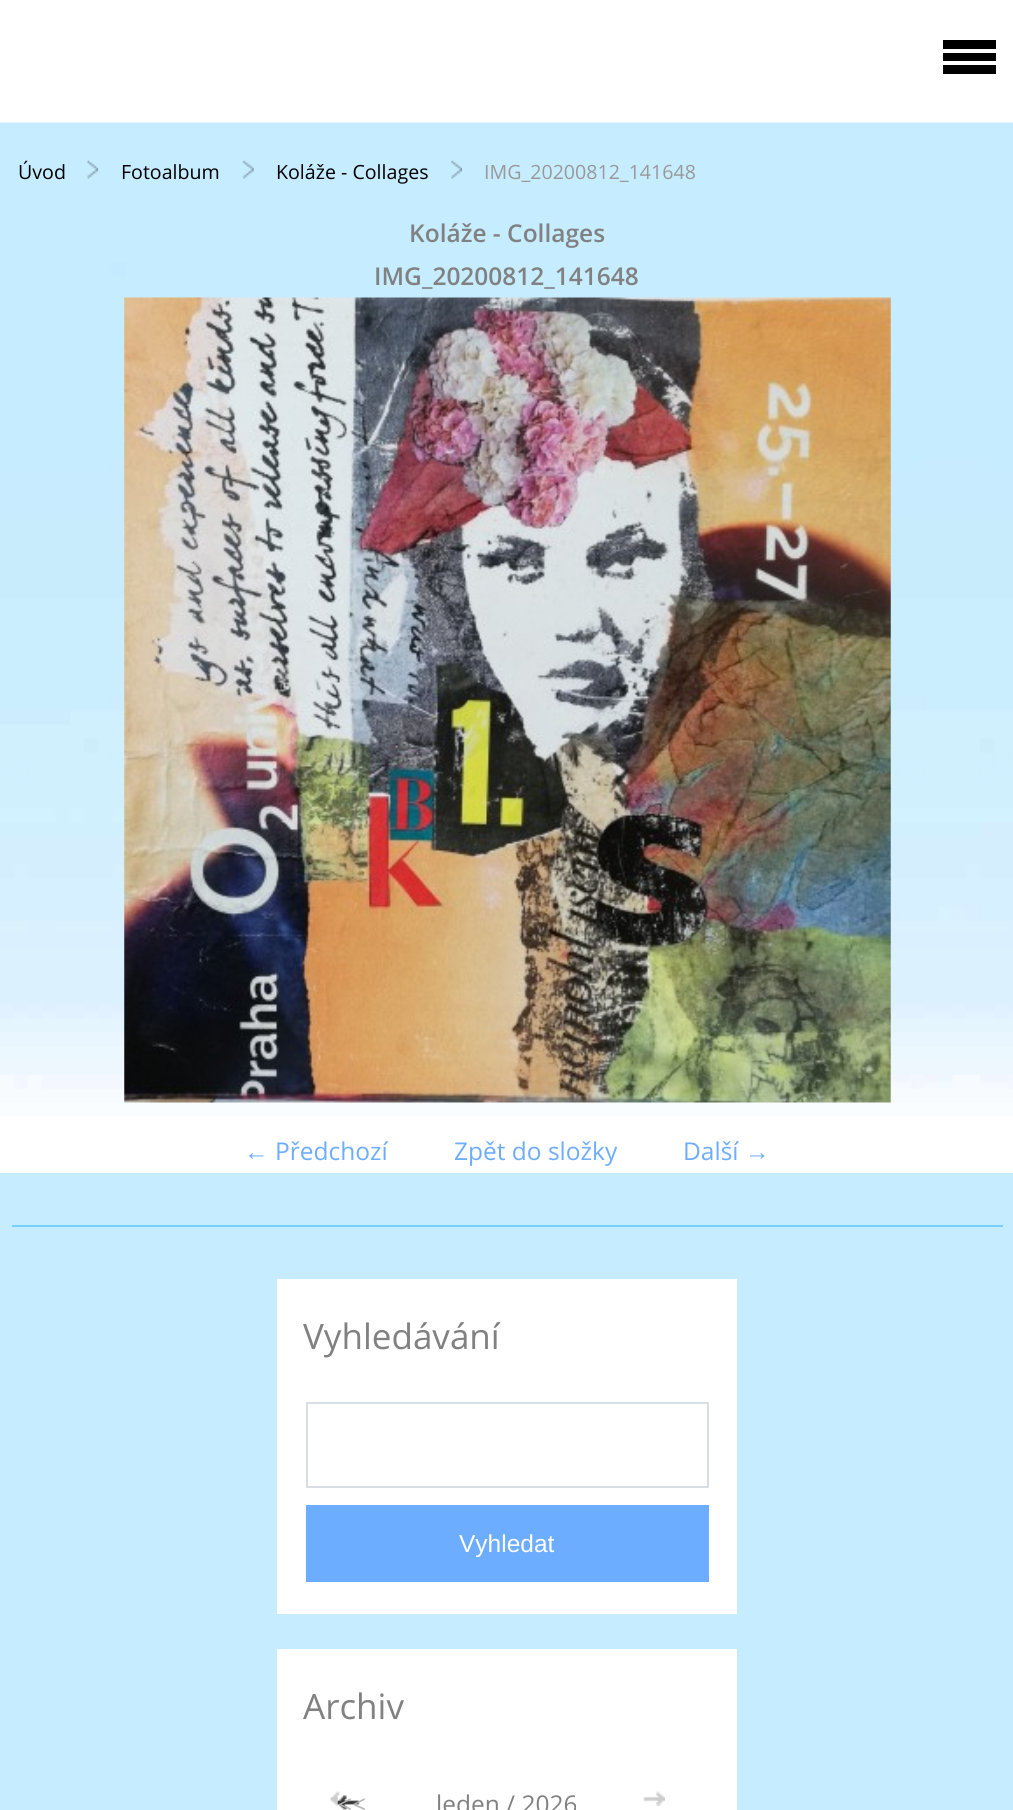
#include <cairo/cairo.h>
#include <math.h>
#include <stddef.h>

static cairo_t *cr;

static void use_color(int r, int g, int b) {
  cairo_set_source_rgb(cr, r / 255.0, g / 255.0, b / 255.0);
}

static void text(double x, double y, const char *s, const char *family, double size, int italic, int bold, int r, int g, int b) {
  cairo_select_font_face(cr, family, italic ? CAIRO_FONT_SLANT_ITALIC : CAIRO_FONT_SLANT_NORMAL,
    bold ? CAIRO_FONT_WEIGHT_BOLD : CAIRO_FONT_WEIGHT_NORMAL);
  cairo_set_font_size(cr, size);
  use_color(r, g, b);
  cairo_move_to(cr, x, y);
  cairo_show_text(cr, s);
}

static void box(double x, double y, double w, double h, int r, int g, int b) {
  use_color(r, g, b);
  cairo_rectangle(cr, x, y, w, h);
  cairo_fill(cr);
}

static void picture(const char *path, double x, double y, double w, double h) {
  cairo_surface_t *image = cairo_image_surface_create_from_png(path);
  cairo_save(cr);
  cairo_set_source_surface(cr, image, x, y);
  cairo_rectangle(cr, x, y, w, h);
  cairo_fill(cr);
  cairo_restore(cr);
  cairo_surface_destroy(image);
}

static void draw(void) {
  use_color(198, 236, 255);
  cairo_paint(cr);
  box(0, 0, 1013, 123, 255, 255, 255);
  box(943, 40, 53, 9, 0, 0, 0);
  box(943, 53, 53, 8, 0, 0, 0);
  box(943, 65, 53, 9, 0, 0, 0);
  box(0, 1117, 1013, 56, 255, 255, 255);
  picture("img_01.png", 0, 122, 1013, 995);
  picture("img_02.png", 87, 160, 11, 19);
  picture("img_03.png", 242, 160, 12, 19);
  picture("img_04.png", 451, 160, 11, 19);
  picture("img_05.png", 124, 297, 767, 806);
  box(12, 1225, 991, 2, 115, 208, 255);
  box(277, 1279, 460, 335, 255, 255, 255);
  cairo_rectangle(cr, 307, 1403, 401, 84);
  use_color(214, 221, 227);
  cairo_stroke(cr);
  box(306, 1505, 403, 77, 109, 173, 255);
  box(277, 1649, 460, 161, 255, 255, 255);
  picture("img_06.png", 330, 1791, 23, 15);
  picture("img_07.png", 337, 1795, 23, 15);
  picture("img_08.png", 643, 1791, 22, 15);
  text(18, 179, "Úvod", "Open Sans", 19.6, 0, 0, 0, 0, 0);
  text(121, 179, "Fotoalbum", "Open Sans", 19.6, 0, 0, 0, 0, 0);
  text(276, 179, "Koláže - Collages", "Open Sans", 19.6, 0, 0, 0, 0, 0);
  text(484, 179, "IMG_20200812_141648", "Open Sans", 19.6, 0, 0, 153, 153, 153);
  text(409, 242, "Koláže - Collages", "Open Sans SemiBold", 24.5, 0, 0, 129, 129, 129);
  text(374, 285, "IMG_20200812_141648", "Open Sans SemiBold", 24.5, 0, 0, 129, 129, 129);
  text(244, 1160, "←", "Liberation Sans", 24.5, 0, 0, 109, 173, 255);
  text(275, 1160, "Předchozí", "Open Sans", 24.5, 0, 0, 109, 173, 255);
  text(454, 1160, "Zpět do složky", "Open Sans", 24.5, 0, 0, 109, 173, 255);
  text(683, 1160, "Další", "Open Sans", 24.5, 0, 0, 109, 173, 255);
  text(745, 1160, "→", "Liberation Sans", 24.5, 0, 0, 109, 173, 255);
  text(303, 1349, "Vyhledávání", "Open Sans", 35, 0, 0, 129, 129, 129);
  text(459, 1552, "Vyhledat", "Liberation Sans", 24.5, 0, 0, 255, 255, 255);
  text(303, 1719, "Archiv", "Open Sans", 35, 0, 0, 129, 129, 129);
  text(338, 1813, "<<", "Open Sans", 24.5, 0, 0, 180, 180, 180);
  text(436, 1813, "leden / 2026", "Open Sans", 24.5, 0, 0, 129, 129, 129);
}

int main(void) {
  cairo_surface_t *surface = cairo_image_surface_create(CAIRO_FORMAT_RGB24, 1013, 1810);
  cr = cairo_create(surface);
  cairo_font_options_t *options = cairo_font_options_create();
  cairo_font_options_set_hint_metrics(options, CAIRO_HINT_METRICS_OFF);
  cairo_font_options_set_hint_style(options, CAIRO_HINT_STYLE_NONE);
  cairo_set_font_options(cr, options);
  cairo_set_miter_limit(cr, 4);
  draw();
  cairo_surface_write_to_png(surface, "out.png");
  cairo_font_options_destroy(options);
  cairo_destroy(cr);
  cairo_surface_destroy(surface);
  return 0;
}
